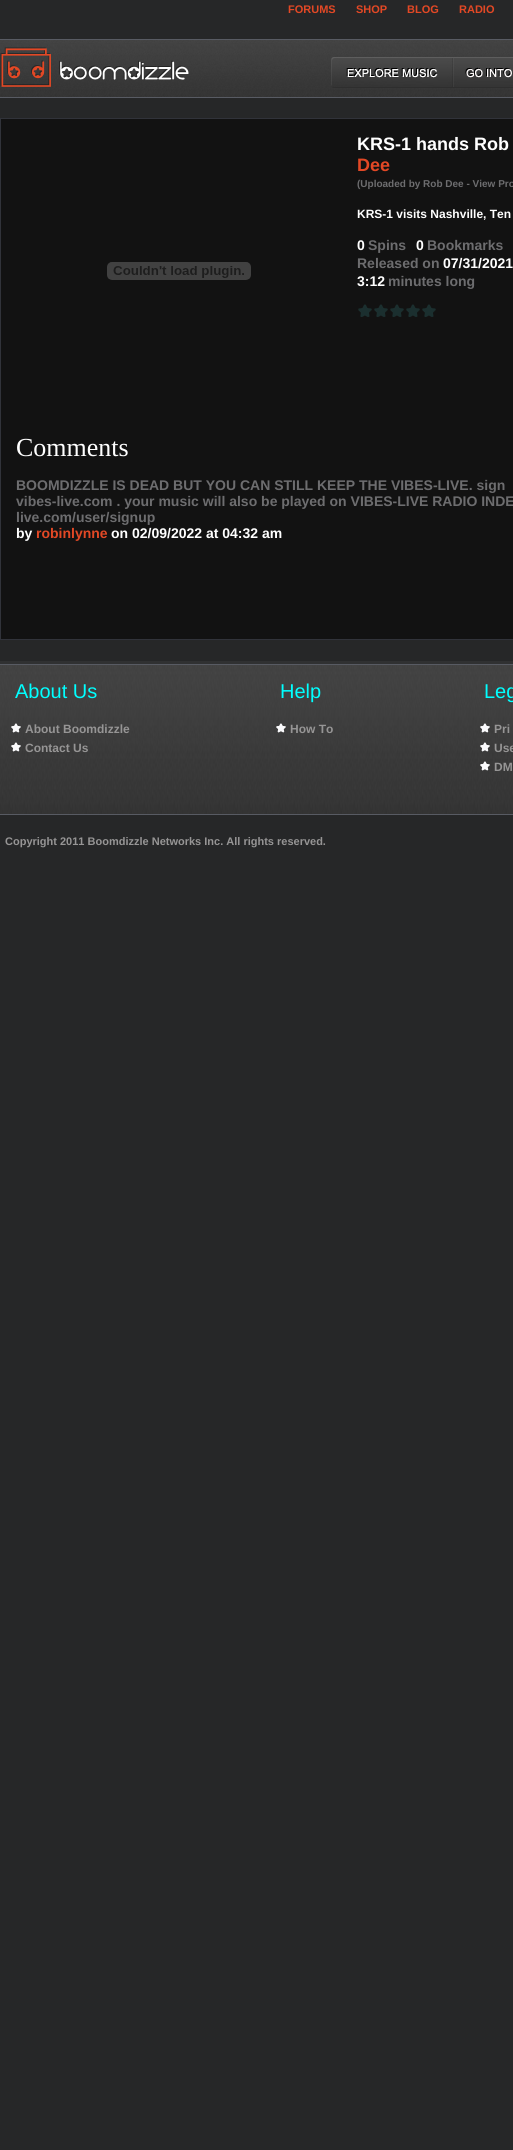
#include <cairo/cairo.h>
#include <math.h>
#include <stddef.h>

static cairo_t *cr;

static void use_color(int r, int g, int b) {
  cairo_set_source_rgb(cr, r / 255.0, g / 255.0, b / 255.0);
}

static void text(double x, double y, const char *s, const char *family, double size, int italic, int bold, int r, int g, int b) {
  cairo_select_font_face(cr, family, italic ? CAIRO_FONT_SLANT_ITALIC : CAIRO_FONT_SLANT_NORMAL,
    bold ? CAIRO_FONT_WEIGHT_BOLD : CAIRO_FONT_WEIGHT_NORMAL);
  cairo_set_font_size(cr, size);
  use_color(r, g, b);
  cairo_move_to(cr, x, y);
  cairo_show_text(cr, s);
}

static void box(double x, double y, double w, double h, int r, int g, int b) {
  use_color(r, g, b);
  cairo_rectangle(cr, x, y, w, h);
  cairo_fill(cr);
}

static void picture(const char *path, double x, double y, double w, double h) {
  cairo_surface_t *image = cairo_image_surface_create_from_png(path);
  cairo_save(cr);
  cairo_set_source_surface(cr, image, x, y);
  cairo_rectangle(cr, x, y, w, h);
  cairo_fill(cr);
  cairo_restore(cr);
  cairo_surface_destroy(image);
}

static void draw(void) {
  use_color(38, 39, 40);
  cairo_paint(cr);
  picture("img_01.png", 0, 40, 513, 57);
  box(0, 39, 513, 1, 88, 91, 99);
  box(0, 97, 513, 1, 88, 91, 99);
  picture("img_02.png", 0, 47, 189, 40);
  picture("img_03.png", 331, 57, 182, 31);
  picture("img_04.png", 346, 67, 92, 11);
  picture("img_05.png", 465, 67, 47, 11);
  use_color(18, 18, 18);
  cairo_rectangle(cr, 0.5, 118.5, 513, 521);
  cairo_fill_preserve(cr);
  use_color(49, 51, 58);
  cairo_set_line_width(cr, 1);
  cairo_stroke(cr);
  picture("img_06.png", 107, 262, 144, 18);
  picture("img_07.png", 358, 304, 14, 13);
  picture("img_08.png", 358, 304, 14, 13);
  picture("img_07.png", 374, 304, 14, 13);
  picture("img_08.png", 374, 304, 14, 13);
  picture("img_07.png", 390, 304, 14, 13);
  picture("img_08.png", 390, 304, 14, 13);
  picture("img_07.png", 406, 304, 14, 13);
  picture("img_08.png", 406, 304, 14, 13);
  picture("img_07.png", 422, 304, 14, 13);
  picture("img_08.png", 422, 304, 14, 13);
  box(0, 661, 513, 3, 48, 49, 50);
  picture("img_09.png", 0, 665, 513, 149);
  box(0, 664, 513, 1, 88, 91, 99);
  box(0, 814, 513, 1, 88, 91, 99);
  picture("img_10.png", 11, 723, 10, 10);
  picture("img_11.png", 11, 742, 10, 10);
  picture("img_12.png", 276, 723, 10, 10);
  picture("img_13.png", 480, 723, 10, 10);
  picture("img_14.png", 480, 742, 10, 10);
  picture("img_15.png", 480, 761, 10, 10);
  text(288, 13, "FORUMS", "Liberation Sans", 11, 0, 1, 227, 72, 37);
  text(356, 13, "SHOP", "Liberation Sans", 11, 0, 1, 227, 72, 37);
  text(407, 13, "BLOG", "Liberation Sans", 11, 0, 1, 227, 72, 37);
  text(459, 13, "RADIO", "Liberation Sans", 11, 0, 1, 227, 72, 37);
  text(357, 150, "KRS-1 hands Rob", "Liberation Sans", 18, 0, 1, 255, 255, 255);
  text(357, 171, "Dee", "Liberation Sans", 18, 0, 1, 227, 72, 37);
  text(357, 187, "(Uploaded by Rob Dee - View Pro", "Liberation Sans", 10, 0, 1, 109, 109, 111);
  text(357, 218, "KRS-1 visits Nashville, Ten", "Liberation Sans", 12, 0, 1, 255, 255, 255);
  text(357, 250, "0", "Liberation Sans", 14, 0, 1, 255, 255, 255);
  text(368, 250, "Spins", "Liberation Sans", 14, 0, 1, 109, 109, 111);
  text(416, 250, "0", "Liberation Sans", 14, 0, 1, 255, 255, 255);
  text(427, 250, "Bookmarks", "Liberation Sans", 14, 0, 1, 109, 109, 111);
  text(357, 268, "Released on", "Liberation Sans", 14, 0, 1, 109, 109, 111);
  text(443, 268, "07/31/2021", "Liberation Sans", 14, 0, 1, 255, 255, 255);
  text(357, 286, "3:12", "Liberation Sans", 14, 0, 1, 255, 255, 255);
  text(388, 286, "minutes long", "Liberation Sans", 14, 0, 1, 109, 109, 111);
  text(16, 456, "Comments", "Liberation Serif", 26, 0, 0, 255, 255, 255);
  text(16, 490, "BOOMDIZZLE IS DEAD BUT YOU CAN STILL KEEP THE VIBES-LIVE. sign", "Liberation Sans", 14, 0, 1, 109, 109, 111);
  text(16, 506, "vibes-live.com . your music will also be played on VIBES-LIVE RADIO INDE", "Liberation Sans", 14, 0, 1, 109, 109, 111);
  text(16, 522, "live.com/user/signup", "Liberation Sans", 14, 0, 1, 109, 109, 111);
  text(16, 538, "by", "Liberation Sans", 14, 0, 1, 255, 255, 255);
  text(36, 538, "robinlynne", "Liberation Sans", 14, 0, 1, 227, 72, 37);
  text(111, 538, "on 02/09/2022 at 04:32 am", "Liberation Sans", 14, 0, 1, 255, 255, 255);
  text(15, 698, "About Us", "Liberation Sans", 20, 0, 0, 0, 255, 255);
  text(25, 733, "About Boomdizzle", "Liberation Sans", 12, 0, 1, 150, 149, 149);
  text(25, 752, "Contact Us", "Liberation Sans", 12, 0, 1, 150, 149, 149);
  text(280, 698, "Help", "Liberation Sans", 20, 0, 0, 0, 255, 255);
  text(290, 733, "How To", "Liberation Sans", 12, 0, 1, 150, 149, 149);
  text(484, 698, "Leg", "Liberation Sans", 20, 0, 0, 0, 255, 255);
  text(494, 733, "Pri", "Liberation Sans", 12, 0, 1, 150, 149, 149);
  text(494, 752, "Use", "Liberation Sans", 12, 0, 1, 150, 149, 149);
  text(494, 771, "DM", "Liberation Sans", 12, 0, 1, 150, 149, 149);
  text(5, 845, "Copyright 2011 Boomdizzle Networks Inc. All rights reserved.", "Liberation Sans", 11, 0, 1, 150, 149, 149);
}

int main(void) {
  cairo_surface_t *surface = cairo_image_surface_create(CAIRO_FORMAT_RGB24, 513, 2150);
  cr = cairo_create(surface);
  cairo_font_options_t *options = cairo_font_options_create();
  cairo_font_options_set_hint_metrics(options, CAIRO_HINT_METRICS_OFF);
  cairo_font_options_set_hint_style(options, CAIRO_HINT_STYLE_NONE);
  cairo_set_font_options(cr, options);
  cairo_set_miter_limit(cr, 4);
  draw();
  cairo_surface_write_to_png(surface, "out.png");
  cairo_font_options_destroy(options);
  cairo_destroy(cr);
  cairo_surface_destroy(surface);
  return 0;
}
